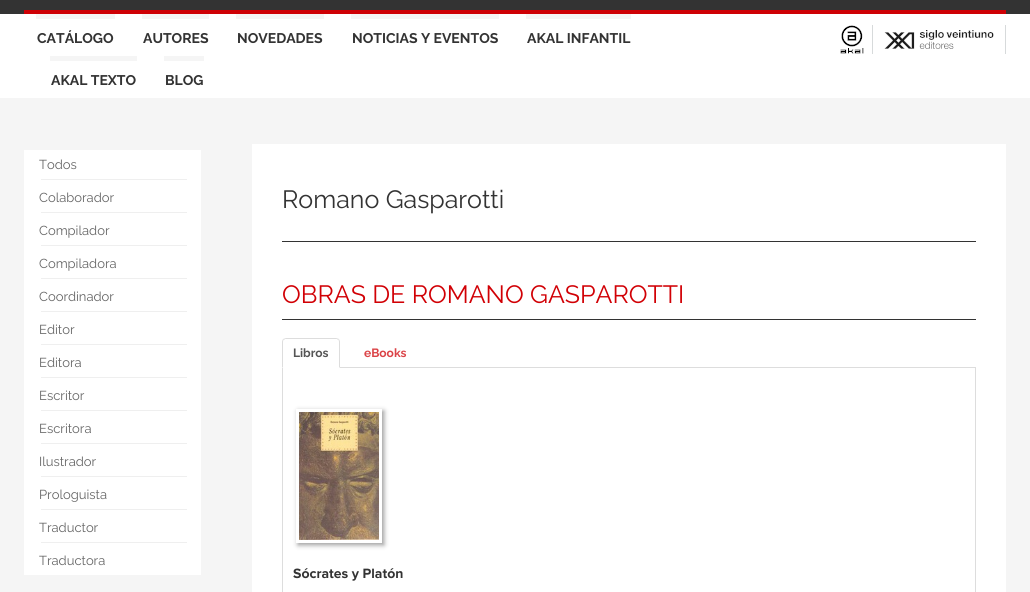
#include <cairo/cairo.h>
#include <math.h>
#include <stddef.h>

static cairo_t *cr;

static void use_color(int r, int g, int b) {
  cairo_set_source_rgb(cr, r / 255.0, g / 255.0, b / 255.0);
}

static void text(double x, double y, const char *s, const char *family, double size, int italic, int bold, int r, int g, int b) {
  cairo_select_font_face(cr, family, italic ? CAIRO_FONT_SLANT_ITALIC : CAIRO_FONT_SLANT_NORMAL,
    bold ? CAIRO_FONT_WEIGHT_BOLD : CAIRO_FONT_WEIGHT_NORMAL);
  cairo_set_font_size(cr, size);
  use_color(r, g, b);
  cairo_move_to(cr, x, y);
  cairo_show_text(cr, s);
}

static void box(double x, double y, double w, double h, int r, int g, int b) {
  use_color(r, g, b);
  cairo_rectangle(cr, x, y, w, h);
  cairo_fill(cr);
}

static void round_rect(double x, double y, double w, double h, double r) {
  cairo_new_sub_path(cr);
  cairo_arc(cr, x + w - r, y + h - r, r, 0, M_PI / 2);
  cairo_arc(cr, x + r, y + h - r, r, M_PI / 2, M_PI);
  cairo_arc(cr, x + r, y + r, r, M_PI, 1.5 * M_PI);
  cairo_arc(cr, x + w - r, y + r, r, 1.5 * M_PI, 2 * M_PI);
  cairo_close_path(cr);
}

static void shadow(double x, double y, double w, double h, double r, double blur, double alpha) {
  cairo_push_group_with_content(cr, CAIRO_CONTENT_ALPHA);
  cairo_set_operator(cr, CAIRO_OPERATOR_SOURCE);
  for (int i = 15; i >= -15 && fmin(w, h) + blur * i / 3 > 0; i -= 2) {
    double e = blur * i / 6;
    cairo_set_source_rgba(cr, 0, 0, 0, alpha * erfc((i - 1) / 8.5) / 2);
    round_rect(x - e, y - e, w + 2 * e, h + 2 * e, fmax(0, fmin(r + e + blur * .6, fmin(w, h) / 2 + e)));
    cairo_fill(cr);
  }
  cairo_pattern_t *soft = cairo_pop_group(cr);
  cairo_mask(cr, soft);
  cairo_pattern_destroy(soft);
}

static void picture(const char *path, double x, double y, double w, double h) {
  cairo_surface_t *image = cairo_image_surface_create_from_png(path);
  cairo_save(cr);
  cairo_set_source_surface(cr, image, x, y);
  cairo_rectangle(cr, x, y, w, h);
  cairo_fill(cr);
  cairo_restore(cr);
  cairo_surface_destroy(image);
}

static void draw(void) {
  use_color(245, 245, 245);
  cairo_paint(cr);
  box(0, 0, 1030, 14, 51, 51, 51);
  box(24, 10, 982, 4, 206, 0, 5);
  box(0, 14, 1030, 84, 255, 255, 255);
  box(36, 14, 79, 5, 245, 245, 245);
  box(142, 14, 67, 5, 245, 245, 245);
  box(236, 14, 88, 5, 245, 245, 245);
  box(351, 14, 148, 5, 245, 245, 245);
  box(526, 14, 105, 5, 245, 245, 245);
  box(50, 56, 87, 5, 245, 245, 245);
  box(164, 56, 40, 5, 245, 245, 245);
  box(872, 25, 1, 29, 215, 218, 219);
  picture("img_01.png", 840, 25, 24, 29);
  box(1005, 25, 1, 29, 215, 218, 219);
  picture("img_02.png", 884, 30, 110, 19);
  box(24, 150, 177, 425, 255, 255, 255);
  box(41, 179, 146, 1, 239, 239, 239);
  box(41, 212, 146, 1, 239, 239, 239);
  box(41, 245, 146, 1, 239, 239, 239);
  box(41, 278, 146, 1, 239, 239, 239);
  box(41, 311, 146, 1, 239, 239, 239);
  box(41, 344, 146, 1, 239, 239, 239);
  box(41, 377, 146, 1, 239, 239, 239);
  box(41, 410, 146, 1, 239, 239, 239);
  box(41, 443, 146, 1, 239, 239, 239);
  box(41, 476, 146, 1, 239, 239, 239);
  box(41, 509, 146, 1, 239, 239, 239);
  box(41, 542, 146, 1, 239, 239, 239);
  box(252, 144, 754, 448, 255, 255, 255);
  box(282, 241, 694, 1, 51, 51, 51);
  box(282, 319, 694, 1, 51, 51, 51);
  box(340, 367, 636, 1, 221, 221, 221);
  cairo_new_path(cr);
  cairo_move_to(cr, 286, 338);
  cairo_line_to(cr, 283, 339);
  cairo_line_to(cr, 284, 340);
  cairo_line_to(cr, 285, 339);
  cairo_line_to(cr, 337, 339);
  cairo_line_to(cr, 338, 340);
  cairo_line_to(cr, 339, 339);
  cairo_line_to(cr, 336, 338);
  cairo_close_path(cr);
  cairo_fill(cr);
  cairo_new_path(cr);
  cairo_move_to(cr, 340, 368);
  cairo_line_to(cr, 340, 342);
  cairo_curve_to(cr, 340, 341, 339.5, 340, 339, 339);
  cairo_line_to(cr, 338, 340);
  cairo_curve_to(cr, 339, 340, 339, 341, 339, 342);
  cairo_line_to(cr, 339, 367);
  cairo_close_path(cr);
  cairo_move_to(cr, 282, 368);
  cairo_line_to(cr, 283, 367);
  cairo_line_to(cr, 283, 342);
  cairo_curve_to(cr, 283, 341, 283, 340, 284, 340);
  cairo_line_to(cr, 283, 339);
  cairo_curve_to(cr, 282.5, 340, 282, 341, 282, 342);
  cairo_close_path(cr);
  cairo_fill(cr);
  cairo_set_fill_rule(cr, CAIRO_FILL_RULE_EVEN_ODD);
  cairo_new_path(cr);
  cairo_move_to(cr, 282, 368);
  cairo_line_to(cr, 976, 368);
  cairo_line_to(cr, 976, 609);
  cairo_curve_to(cr, 976, 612, 973, 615, 970, 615);
  cairo_line_to(cr, 288, 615);
  cairo_curve_to(cr, 285, 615, 282, 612, 282, 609);
  cairo_close_path(cr);
  cairo_move_to(cr, 283, 368);
  cairo_line_to(cr, 975, 368);
  cairo_line_to(cr, 975, 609);
  cairo_curve_to(cr, 975, 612, 973, 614, 970, 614);
  cairo_line_to(cr, 288, 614);
  cairo_curve_to(cr, 285, 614, 283, 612, 283, 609);
  cairo_close_path(cr);
  cairo_fill(cr);
  cairo_save(cr);
  cairo_new_path(cr);
  cairo_move_to(cr, 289, 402);
  cairo_line_to(cr, 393, 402);
  cairo_line_to(cr, 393, 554);
  cairo_line_to(cr, 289, 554);
  cairo_close_path(cr);
  cairo_move_to(cr, 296, 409);
  cairo_line_to(cr, 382, 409);
  cairo_line_to(cr, 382, 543);
  cairo_line_to(cr, 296, 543);
  cairo_close_path(cr);
  cairo_clip(cr);
  use_color(153, 153, 153);
  shadow(298, 411, 86, 134, 0, 2.5, 1);
  cairo_restore(cr);
  picture("img_03.png", 299, 412, 80, 128);
  text(37, 43, "CATÁLOGO", "Raleway", 14, 0, 1, 51, 51, 51);
  text(143, 43, "AUTORES", "Raleway", 14, 0, 1, 51, 51, 51);
  text(237, 43, "NOVEDADES", "Raleway", 14, 0, 1, 51, 51, 51);
  text(352, 43, "NOTICIAS Y EVENTOS", "Raleway", 14, 0, 1, 51, 51, 51);
  text(527, 43, "AKAL INFANTIL", "Raleway", 14, 0, 1, 51, 51, 51);
  text(51, 85, "AKAL TEXTO", "Raleway", 14, 0, 1, 51, 51, 51);
  text(165, 85, "BLOG", "Raleway", 14, 0, 1, 51, 51, 51);
  text(39, 169, "Todos", "Raleway", 13, 0, 0, 102, 102, 102);
  text(39, 202, "Colaborador", "Raleway", 13, 0, 0, 102, 102, 102);
  text(39, 235, "Compilador", "Raleway", 13, 0, 0, 102, 102, 102);
  text(39, 268, "Compiladora", "Raleway", 13, 0, 0, 102, 102, 102);
  text(39, 301, "Coordinador", "Raleway", 13, 0, 0, 102, 102, 102);
  text(39, 334, "Editor", "Raleway", 13, 0, 0, 102, 102, 102);
  text(39, 367, "Editora", "Raleway", 13, 0, 0, 102, 102, 102);
  text(39, 400, "Escritor", "Raleway", 13, 0, 0, 102, 102, 102);
  text(39, 433, "Escritora", "Raleway", 13, 0, 0, 102, 102, 102);
  text(39, 466, "Ilustrador", "Raleway", 13, 0, 0, 102, 102, 102);
  text(39, 499, "Prologuista", "Raleway", 13, 0, 0, 102, 102, 102);
  text(39, 532, "Traductor", "Raleway", 13, 0, 0, 102, 102, 102);
  text(39, 565, "Traductora", "Raleway", 13, 0, 0, 102, 102, 102);
  text(282, 208, "Romano Gasparotti", "Raleway", 25, 0, 0, 51, 51, 51);
  text(282, 303, "OBRAS DE ROMANO GASPAROTTI", "Raleway", 25, 0, 0, 209, 0, 5);
  text(293, 357, "Libros", "Raleway", 12, 0, 1, 85, 85, 85);
  text(364, 357, "eBooks", "Raleway", 12, 0, 1, 219, 68, 72);
  text(293, 578, "Sócrates y Platón", "Proxima Nova", 14, 0, 1, 51, 51, 51);
}

int main(void) {
  cairo_surface_t *surface = cairo_image_surface_create(CAIRO_FORMAT_RGB24, 1030, 592);
  cr = cairo_create(surface);
  cairo_font_options_t *options = cairo_font_options_create();
  cairo_font_options_set_hint_metrics(options, CAIRO_HINT_METRICS_OFF);
  cairo_font_options_set_hint_style(options, CAIRO_HINT_STYLE_NONE);
  cairo_set_font_options(cr, options);
  cairo_set_miter_limit(cr, 4);
  draw();
  cairo_surface_write_to_png(surface, "out.png");
  cairo_font_options_destroy(options);
  cairo_destroy(cr);
  cairo_surface_destroy(surface);
  return 0;
}
